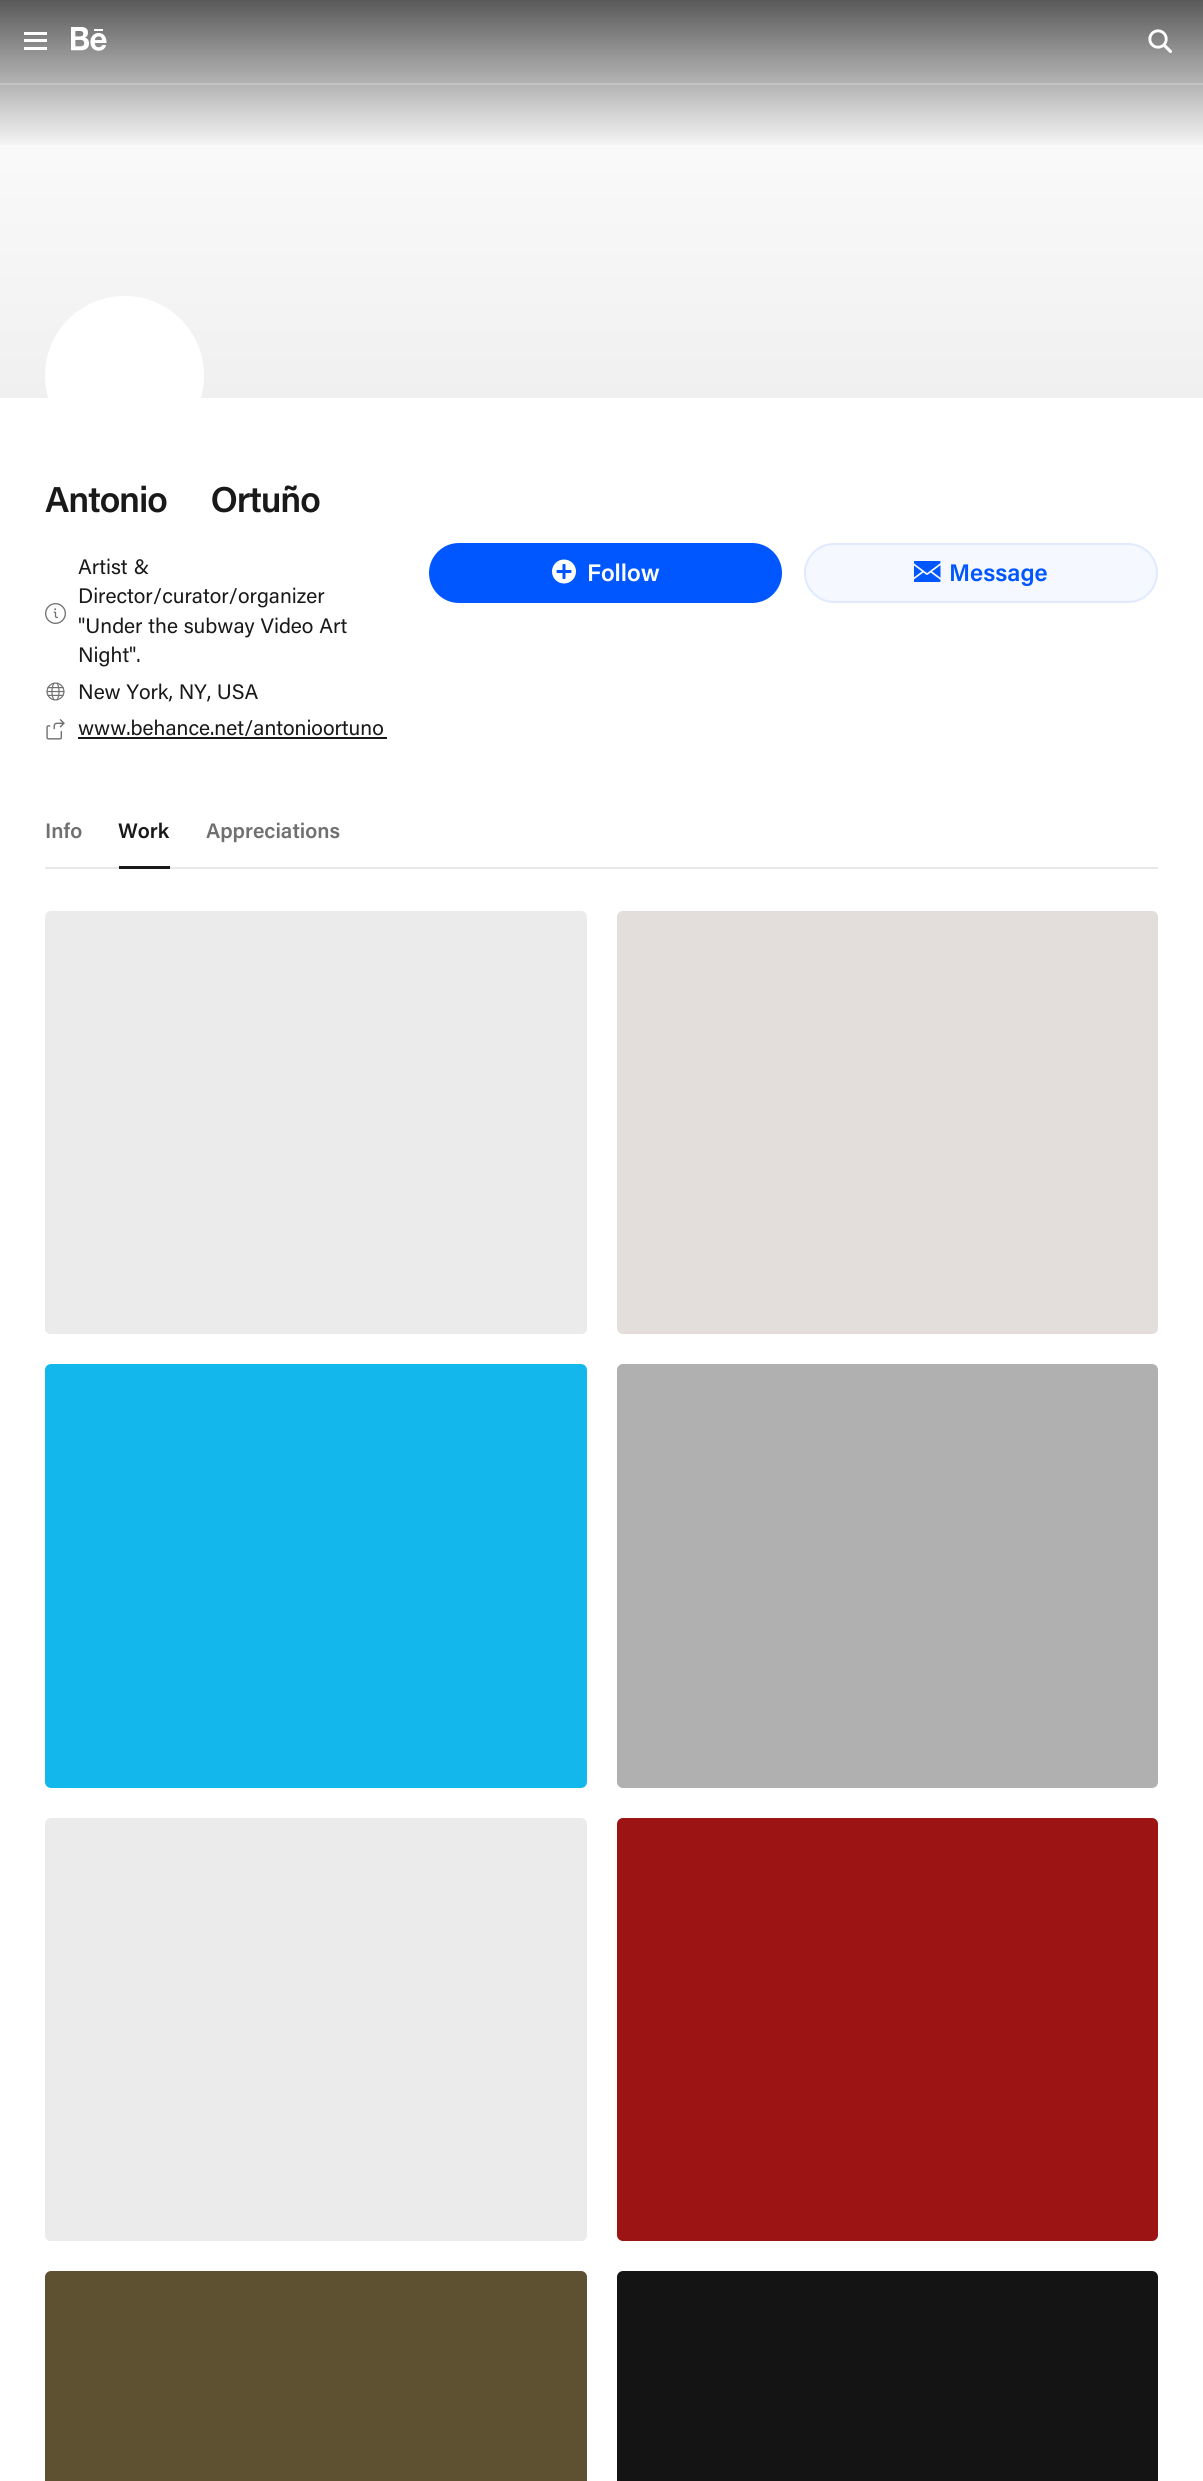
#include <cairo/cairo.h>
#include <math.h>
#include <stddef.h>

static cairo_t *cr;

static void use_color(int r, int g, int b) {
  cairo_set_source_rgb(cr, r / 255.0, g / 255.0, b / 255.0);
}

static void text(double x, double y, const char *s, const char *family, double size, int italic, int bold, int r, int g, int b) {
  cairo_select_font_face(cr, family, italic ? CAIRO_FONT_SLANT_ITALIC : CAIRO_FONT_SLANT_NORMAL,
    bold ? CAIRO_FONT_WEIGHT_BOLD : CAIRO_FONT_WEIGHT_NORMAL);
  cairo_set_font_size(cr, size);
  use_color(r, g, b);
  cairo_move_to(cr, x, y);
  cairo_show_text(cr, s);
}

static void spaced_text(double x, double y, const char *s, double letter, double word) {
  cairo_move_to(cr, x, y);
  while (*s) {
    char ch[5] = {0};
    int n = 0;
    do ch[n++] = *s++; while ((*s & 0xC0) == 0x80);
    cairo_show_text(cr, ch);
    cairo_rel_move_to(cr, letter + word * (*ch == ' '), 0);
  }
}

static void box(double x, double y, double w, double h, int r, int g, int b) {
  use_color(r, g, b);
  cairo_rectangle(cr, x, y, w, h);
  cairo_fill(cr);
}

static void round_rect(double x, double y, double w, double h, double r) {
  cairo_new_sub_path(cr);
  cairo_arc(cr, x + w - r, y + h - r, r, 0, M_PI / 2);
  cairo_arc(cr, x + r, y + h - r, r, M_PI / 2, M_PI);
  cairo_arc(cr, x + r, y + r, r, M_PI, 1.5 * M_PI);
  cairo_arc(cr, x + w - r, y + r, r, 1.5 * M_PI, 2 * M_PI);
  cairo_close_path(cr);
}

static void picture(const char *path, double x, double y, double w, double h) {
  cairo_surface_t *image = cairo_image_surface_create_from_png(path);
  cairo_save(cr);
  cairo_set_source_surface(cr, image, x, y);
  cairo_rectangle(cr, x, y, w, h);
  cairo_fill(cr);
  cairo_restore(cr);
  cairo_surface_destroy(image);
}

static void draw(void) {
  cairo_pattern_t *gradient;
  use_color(255, 255, 255);
  cairo_paint(cr);
  gradient = cairo_pattern_create_linear(602, -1.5, 602, 398);
  cairo_pattern_add_color_stop_rgba(gradient, 0, 1, 1, 1, 1);
  cairo_pattern_add_color_stop_rgba(gradient, 1, 0.941, 0.941, 0.941, 1);
  cairo_set_source(cr, gradient);
  cairo_pattern_destroy(gradient);
  cairo_rectangle(cr, 0, 65, 1203, 333);
  cairo_fill(cr);
  gradient = cairo_pattern_create_linear(602, 0, 602, 150);
  cairo_pattern_add_color_stop_rgba(gradient, 0, 0, 0, 0, 0.65);
  cairo_pattern_add_color_stop_rgba(gradient, 1, 0, 0, 0, 0);
  cairo_set_source(cr, gradient);
  cairo_pattern_destroy(gradient);
  cairo_rectangle(cr, 0, 0, 1203, 145);
  cairo_fill(cr);
  box(24, 32, 23, 3, 255, 255, 255);
  box(24, 39, 23, 3, 255, 255, 255);
  box(24, 47, 23, 3, 255, 255, 255);
  picture("img_01.png", 71, 27, 36, 24);
  picture("img_02.png", 1148, 29, 24, 24);
  box(0, 83, 1203, 2, 195, 195, 195);
  use_color(255, 255, 255);
  cairo_arc(cr, 124.5, 375.5, 79.5, 0, 2 * M_PI);
  cairo_fill(cr);
  picture("img_03.png", 45, 603, 21, 21);
  picture("img_04.png", 46, 682, 19, 19);
  picture("img_05.png", 46, 719, 19, 21);
  box(78, 737, 309, 2, 25, 25, 25);
  use_color(0, 87, 255);
  round_rect(429, 543, 353, 60, 30);
  cairo_fill(cr);
  picture("img_06.png", 552, 559, 24, 25);
  use_color(245, 248, 255);
  round_rect(805, 544, 352, 58, 29);
  cairo_fill_preserve(cr);
  use_color(224, 234, 255);
  cairo_stroke(cr);
  picture("img_07.png", 914, 561, 27, 21);
  box(45, 867, 1113, 2, 232, 232, 232);
  box(119, 866, 51, 3, 25, 25, 25);
  use_color(235, 235, 235);
  round_rect(45, 911, 542, 423, 6);
  cairo_fill(cr);
  cairo_new_path(cr);
  cairo_move_to(cr, 45, 1170);
  cairo_line_to(cr, 587, 1170);
  cairo_line_to(cr, 587, 1328);
  cairo_curve_to(cr, 587, 1331.5, 584.5, 1334, 581, 1334);
  cairo_line_to(cr, 51, 1334);
  cairo_curve_to(cr, 47.5, 1334, 45, 1331.5, 45, 1328);
  cairo_close_path(cr);
  cairo_fill(cr);
  use_color(227, 221, 220);
  round_rect(617, 911, 541, 423, 6);
  cairo_fill(cr);
  use_color(20, 183, 235);
  round_rect(45, 1364, 542, 424, 6);
  cairo_fill(cr);
  use_color(176, 176, 177);
  round_rect(617, 1364, 541, 424, 6);
  cairo_fill(cr);
  use_color(235, 235, 235);
  round_rect(45, 1818, 542, 423, 6);
  cairo_fill(cr);
  cairo_new_path(cr);
  cairo_move_to(cr, 45, 2108);
  cairo_line_to(cr, 587, 2108);
  cairo_line_to(cr, 587, 2235);
  cairo_curve_to(cr, 587, 2238.5, 584.5, 2241, 581, 2241);
  cairo_line_to(cr, 51, 2241);
  cairo_curve_to(cr, 47.5, 2241, 45, 2238.5, 45, 2235);
  cairo_close_path(cr);
  cairo_fill(cr);
  use_color(157, 20, 20);
  round_rect(617, 1818, 541, 423, 6);
  cairo_fill(cr);
  use_color(93, 81, 49);
  round_rect(45, 2271, 542, 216, 6);
  cairo_fill(cr);
  use_color(20, 20, 20);
  round_rect(617, 2271, 541, 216, 6);
  cairo_fill(cr);
  cairo_select_font_face(cr, "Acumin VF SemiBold", CAIRO_FONT_SLANT_NORMAL, CAIRO_FONT_WEIGHT_NORMAL);
  cairo_set_font_size(cr, 36);
  use_color(25, 25, 25);
  spaced_text(45, 512, "Antonio Ortuño", -1.1, 36);
  cairo_select_font_face(cr, "Acumin VF", CAIRO_FONT_SLANT_NORMAL, CAIRO_FONT_WEIGHT_NORMAL);
  cairo_set_font_size(cr, 21);
  spaced_text(78, 574, "Artist &", 0, 1);
  text(78, 603, "Director/curator/organizer", "Acumin VF", 21, 0, 0, 25, 25, 25);
  spaced_text(78, 633, "\"Under the subway Video Art", 0, 0.5);
  text(78, 662, "Night\".", "Acumin VF", 21, 0, 0, 25, 25, 25);
  spaced_text(78, 699, "New York, NY, USA", 0, 0.5);
  text(78, 735, "www.behance.net/antonioortuno", "Acumin VF", 21, 0, 0, 25, 25, 25);
  text(587, 581, "Follow", "Acumin VF SemiBold", 24, 0, 0, 255, 255, 255);
  text(949, 581, "Message", "Acumin VF SemiBold", 24, 0, 0, 0, 87, 255);
  text(45, 838, "Info", "Acumin VF SemiBold", 21, 0, 0, 112, 112, 112);
  text(118, 838, "Work", "Acumin VF SemiBold", 21, 0, 0, 25, 25, 25);
  text(206, 838, "Appreciations", "Acumin VF SemiBold", 21, 0, 0, 112, 112, 112);
}

int main(void) {
  cairo_surface_t *surface = cairo_image_surface_create(CAIRO_FORMAT_RGB24, 1203, 2481);
  cr = cairo_create(surface);
  cairo_font_options_t *options = cairo_font_options_create();
  cairo_font_options_set_hint_metrics(options, CAIRO_HINT_METRICS_OFF);
  cairo_font_options_set_hint_style(options, CAIRO_HINT_STYLE_NONE);
  cairo_set_font_options(cr, options);
  cairo_set_miter_limit(cr, 4);
  draw();
  cairo_surface_write_to_png(surface, "out.png");
  cairo_font_options_destroy(options);
  cairo_destroy(cr);
  cairo_surface_destroy(surface);
  return 0;
}
